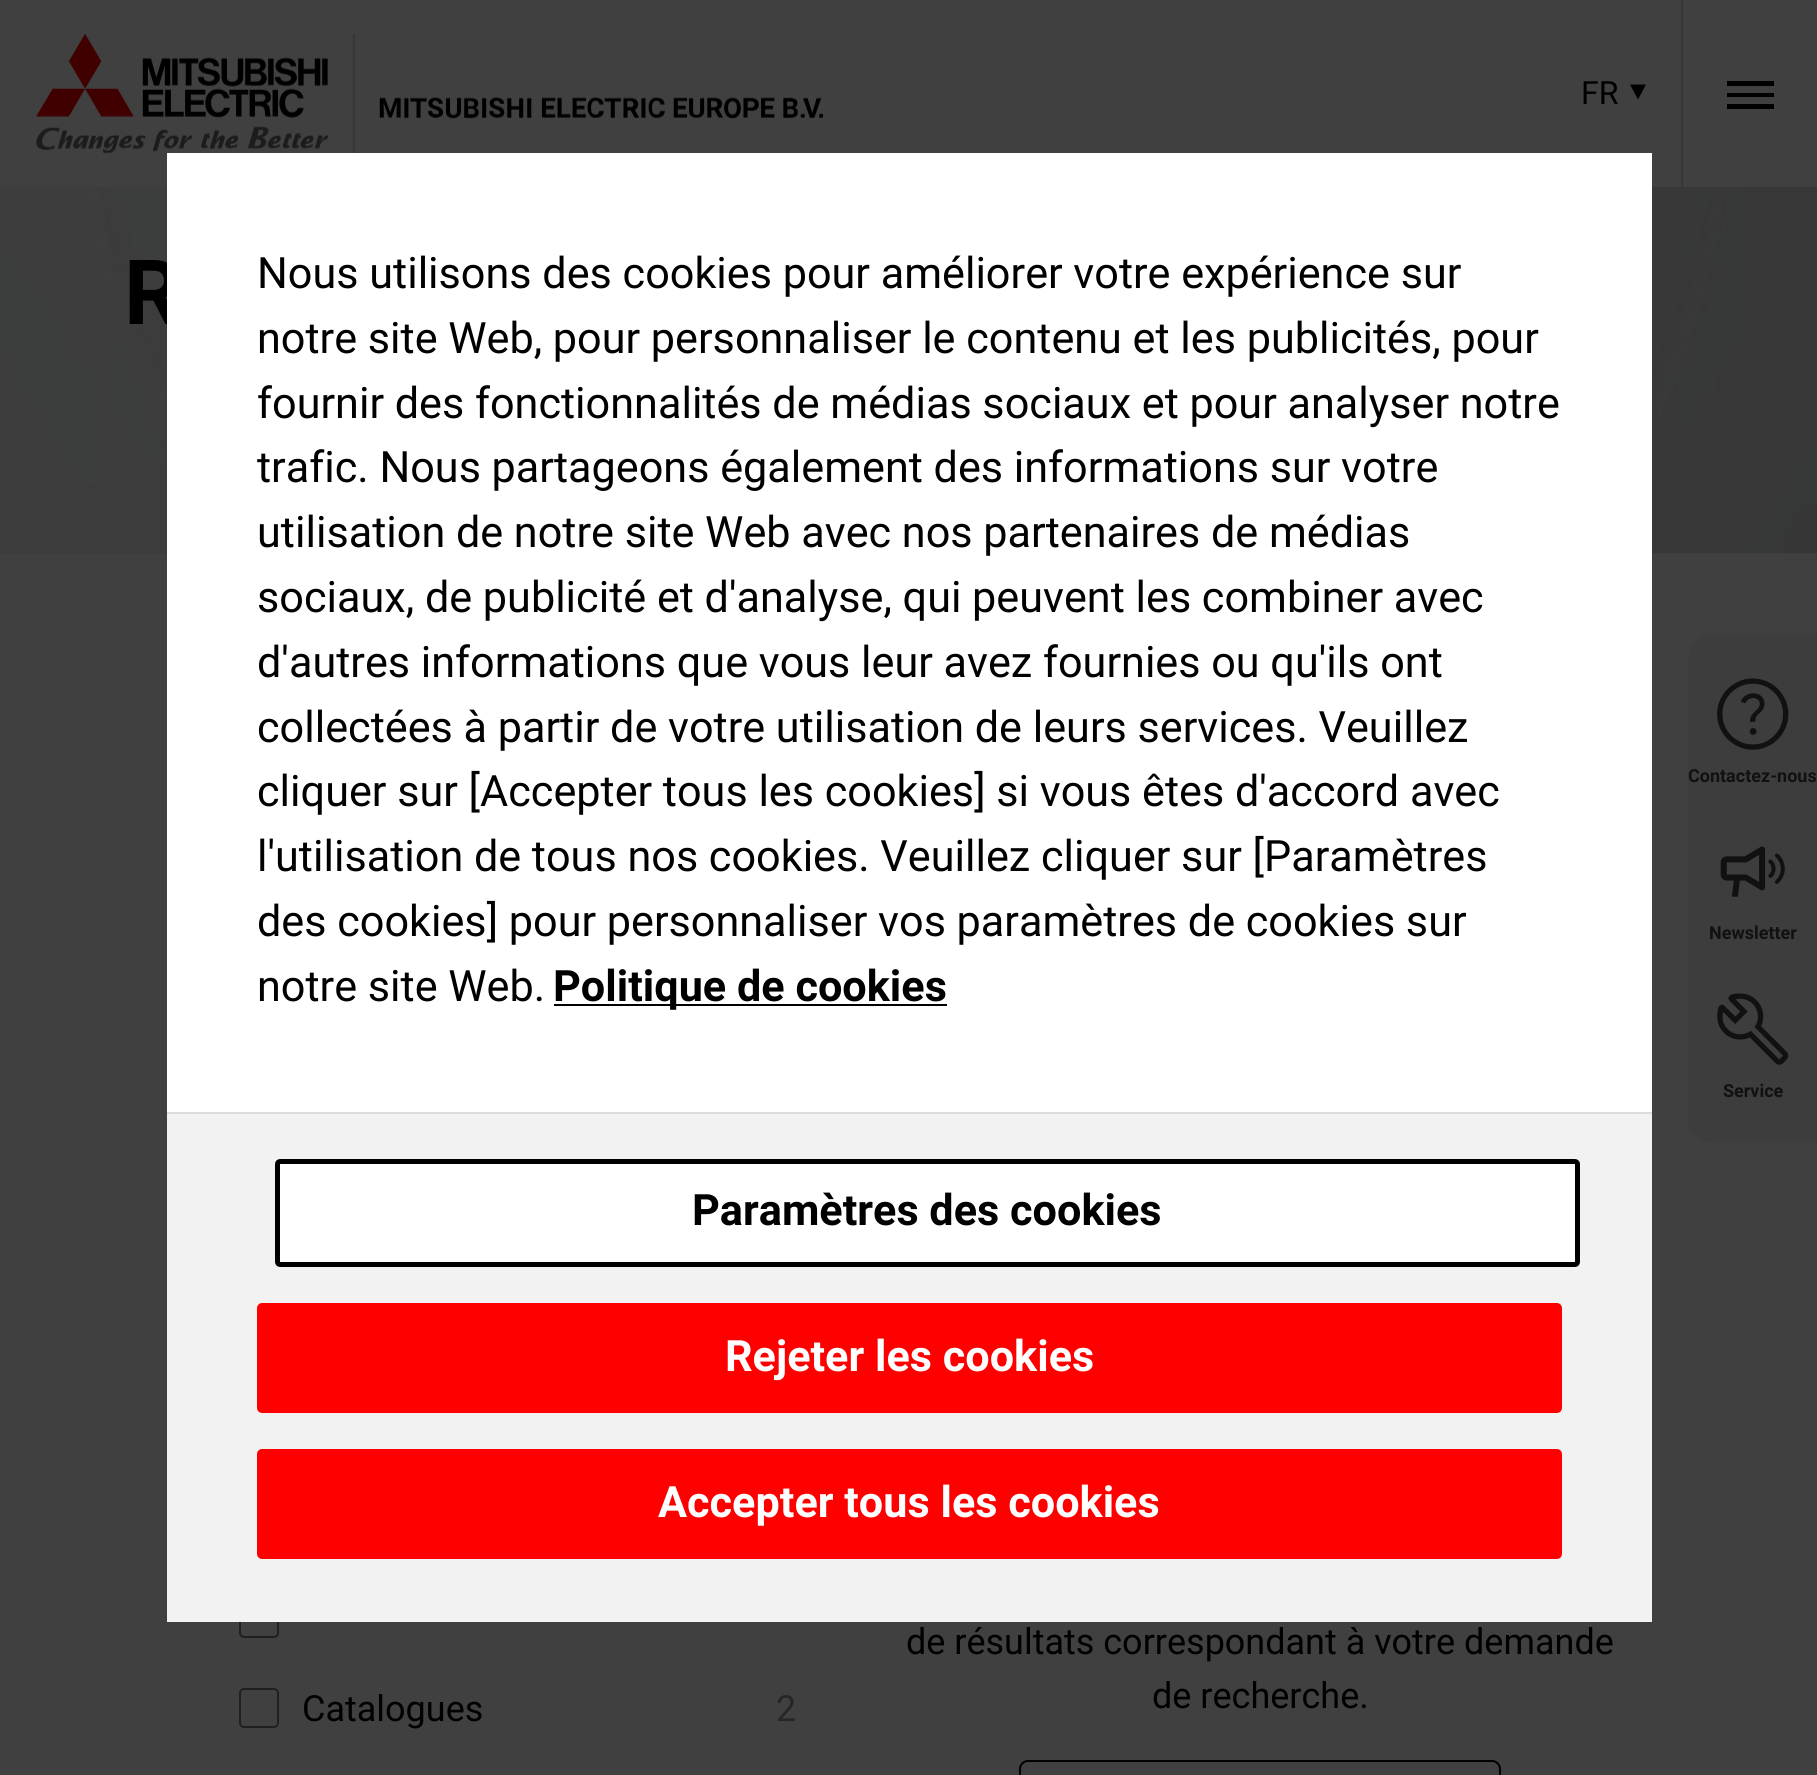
#include <cairo/cairo.h>
#include <math.h>
#include <stddef.h>

static cairo_t *cr;

static void use_color(int r, int g, int b) {
  cairo_set_source_rgb(cr, r / 255.0, g / 255.0, b / 255.0);
}

static void text(double x, double y, const char *s, const char *family, double size, int italic, int bold, int r, int g, int b) {
  cairo_select_font_face(cr, family, italic ? CAIRO_FONT_SLANT_ITALIC : CAIRO_FONT_SLANT_NORMAL,
    bold ? CAIRO_FONT_WEIGHT_BOLD : CAIRO_FONT_WEIGHT_NORMAL);
  cairo_set_font_size(cr, size);
  use_color(r, g, b);
  cairo_move_to(cr, x, y);
  cairo_show_text(cr, s);
}

static void box(double x, double y, double w, double h, int r, int g, int b) {
  use_color(r, g, b);
  cairo_rectangle(cr, x, y, w, h);
  cairo_fill(cr);
}

static void round_rect(double x, double y, double w, double h, double r) {
  cairo_new_sub_path(cr);
  cairo_arc(cr, x + w - r, y + h - r, r, 0, M_PI / 2);
  cairo_arc(cr, x + r, y + h - r, r, M_PI / 2, M_PI);
  cairo_arc(cr, x + r, y + r, r, M_PI, 1.5 * M_PI);
  cairo_arc(cr, x + w - r, y + r, r, 1.5 * M_PI, 2 * M_PI);
  cairo_close_path(cr);
}

static void picture(const char *path, double x, double y, double w, double h) {
  cairo_surface_t *image = cairo_image_surface_create_from_png(path);
  cairo_save(cr);
  cairo_set_source_surface(cr, image, x, y);
  cairo_rectangle(cr, x, y, w, h);
  cairo_fill(cr);
  cairo_restore(cr);
  cairo_surface_destroy(image);
}

static void draw(void) {
  use_color(64, 64, 64);
  cairo_paint(cr);
  picture("img_01.png", 36, 34, 788, 119);
  use_color(0, 0, 0);
  cairo_new_path(cr);
  cairo_move_to(cr, 1638, 99.5);
  cairo_line_to(cr, 1630, 84.5);
  cairo_line_to(cr, 1646, 84.5);
  cairo_close_path(cr);
  cairo_fill(cr);
  box(1681, 0, 2, 187, 55, 55, 55);
  use_color(0, 0, 0);
  cairo_new_path(cr);
  cairo_move_to(cr, 1727, 97);
  cairo_line_to(cr, 1727, 93);
  cairo_line_to(cr, 1774, 93);
  cairo_line_to(cr, 1774, 97);
  cairo_close_path(cr);
  cairo_move_to(cr, 1727, 109);
  cairo_line_to(cr, 1727, 104);
  cairo_line_to(cr, 1774, 104);
  cairo_line_to(cr, 1774, 109);
  cairo_close_path(cr);
  cairo_move_to(cr, 1727, 86);
  cairo_line_to(cr, 1727, 81);
  cairo_line_to(cr, 1774, 81);
  cairo_line_to(cr, 1774, 86);
  cairo_close_path(cr);
  cairo_fill(cr);
  box(0, 553, 1817, 1, 61, 61, 61);
  picture("img_02.png", 0, 187, 1817, 366);
  cairo_set_source_rgba(cr, 0.239, 0.239, 0.239, 0.95);
  cairo_new_path(cr);
  cairo_move_to(cr, 1711, 635);
  cairo_line_to(cr, 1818, 635);
  cairo_line_to(cr, 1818, 1143);
  cairo_line_to(cr, 1711, 1143);
  cairo_curve_to(cr, 1698.5, 1143, 1688, 1132.5, 1688, 1120);
  cairo_line_to(cr, 1688, 658);
  cairo_curve_to(cr, 1688, 645.5, 1698.5, 635, 1711, 635);
  cairo_close_path(cr);
  cairo_fill(cr);
  picture("img_03.png", 1717, 678, 72, 72);
  picture("img_04.png", 1720, 846, 65, 51);
  picture("img_05.png", 1717, 993, 72, 72);
  round_rect(240, 1599, 38, 38, 4);
  use_color(32, 32, 32);
  cairo_stroke(cr);
  round_rect(240, 1689, 38, 38, 4);
  cairo_stroke(cr);
  round_rect(1020, 1761, 480, 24, 8);
  use_color(0, 0, 0);
  cairo_stroke(cr);
  box(167, 1114, 1485, 508, 242, 242, 242);
  box(167, 1112, 1485, 2, 219, 219, 219);
  use_color(255, 255, 255);
  round_rect(277.5, 1161.5, 1300, 103, 2.5);
  cairo_fill_preserve(cr);
  use_color(0, 0, 0);
  cairo_set_line_width(cr, 5);
  cairo_stroke(cr);
  use_color(255, 0, 0);
  round_rect(259.5, 1305.5, 1300, 105, 2.5);
  cairo_fill_preserve(cr);
  cairo_stroke(cr);
  round_rect(259.5, 1451.5, 1300, 105, 2.5);
  cairo_fill_preserve(cr);
  cairo_stroke(cr);
  text(1581, 104, "FR", "Roboto", 32, 0, 0, 0, 0, 0);
  text(124, 324, "R", "Roboto", 90, 0, 1, 0, 0, 0);
  text(1688, 782, "Contactez-nous", "Roboto", 18, 0, 1, 17, 17, 17);
  text(1709, 939, "Newsletter", "Roboto", 18, 0, 1, 17, 17, 17);
  text(1723, 1097, "Service", "Roboto", 18, 0, 1, 17, 17, 17);
  text(302, 1721, "Catalogues", "Roboto", 36, 0, 0, 0, 0, 0);
  text(776, 1721, "2", "Roboto", 36, 0, 0, 38, 38, 38);
  text(906, 1654, "de résultats correspondant à votre demande", "Roboto", 36, 0, 0, 0, 0, 0);
  text(1152, 1708, "de recherche.", "Roboto", 36, 0, 0, 0, 0, 0);
  box(167, 153, 1485, 959, 255, 255, 255);
  text(257, 288, "Nous utilisons des cookies pour améliorer votre expérience sur", "Roboto", 43.2, 0, 0, 0, 0, 0);
  text(257, 353, "notre site Web, pour personnaliser le contenu et les publicités, pour", "Roboto", 43.2, 0, 0, 0, 0, 0);
  text(257, 418, "fournir des fonctionnalités de médias sociaux et pour analyser notre", "Roboto", 43.2, 0, 0, 0, 0, 0);
  text(257, 482, "trafic. Nous partageons également des informations sur votre", "Roboto", 43.2, 0, 0, 0, 0, 0);
  text(257, 547, "utilisation de notre site Web avec nos partenaires de médias", "Roboto", 43.2, 0, 0, 0, 0, 0);
  text(257, 612, "sociaux, de publicité et d'analyse, qui peuvent les combiner avec", "Roboto", 43.2, 0, 0, 0, 0, 0);
  text(257, 677, "d'autres informations que vous leur avez fournies ou qu'ils ont", "Roboto", 43.2, 0, 0, 0, 0, 0);
  text(257, 742, "collectées à partir de votre utilisation de leurs services. Veuillez", "Roboto", 43.2, 0, 0, 0, 0, 0);
  text(257, 806, "cliquer sur [Accepter tous les cookies] si vous êtes d'accord avec", "Roboto", 43.2, 0, 0, 0, 0, 0);
  text(257, 871, "l'utilisation de tous nos cookies. Veuillez cliquer sur [Paramètres", "Roboto", 43.2, 0, 0, 0, 0, 0);
  text(257, 936, "des cookies] pour personnaliser vos paramètres de cookies sur", "Roboto", 43.2, 0, 0, 0, 0, 0);
  text(257, 1001, "notre site Web.", "Roboto", 43.2, 0, 0, 0, 0, 0);
  box(554, 1004, 393, 2, 0, 0, 0);
  text(553, 1001, "Politique de cookies", "Roboto", 43.2, 0, 1, 0, 0, 0);
  text(692, 1225, "Paramètres des cookies", "Roboto", 43.2, 0, 1, 0, 0, 0);
  text(725, 1371, "Rejeter les cookies", "Roboto", 43.2, 0, 1, 255, 255, 255);
  text(658, 1517, "Accepter tous les cookies", "Roboto", 43.2, 0, 1, 255, 255, 255);
}

int main(void) {
  cairo_surface_t *surface = cairo_image_surface_create(CAIRO_FORMAT_RGB24, 1817, 1775);
  cr = cairo_create(surface);
  cairo_font_options_t *options = cairo_font_options_create();
  cairo_font_options_set_hint_metrics(options, CAIRO_HINT_METRICS_OFF);
  cairo_font_options_set_hint_style(options, CAIRO_HINT_STYLE_NONE);
  cairo_set_font_options(cr, options);
  cairo_set_miter_limit(cr, 4);
  draw();
  cairo_surface_write_to_png(surface, "out.png");
  cairo_font_options_destroy(options);
  cairo_destroy(cr);
  cairo_surface_destroy(surface);
  return 0;
}
